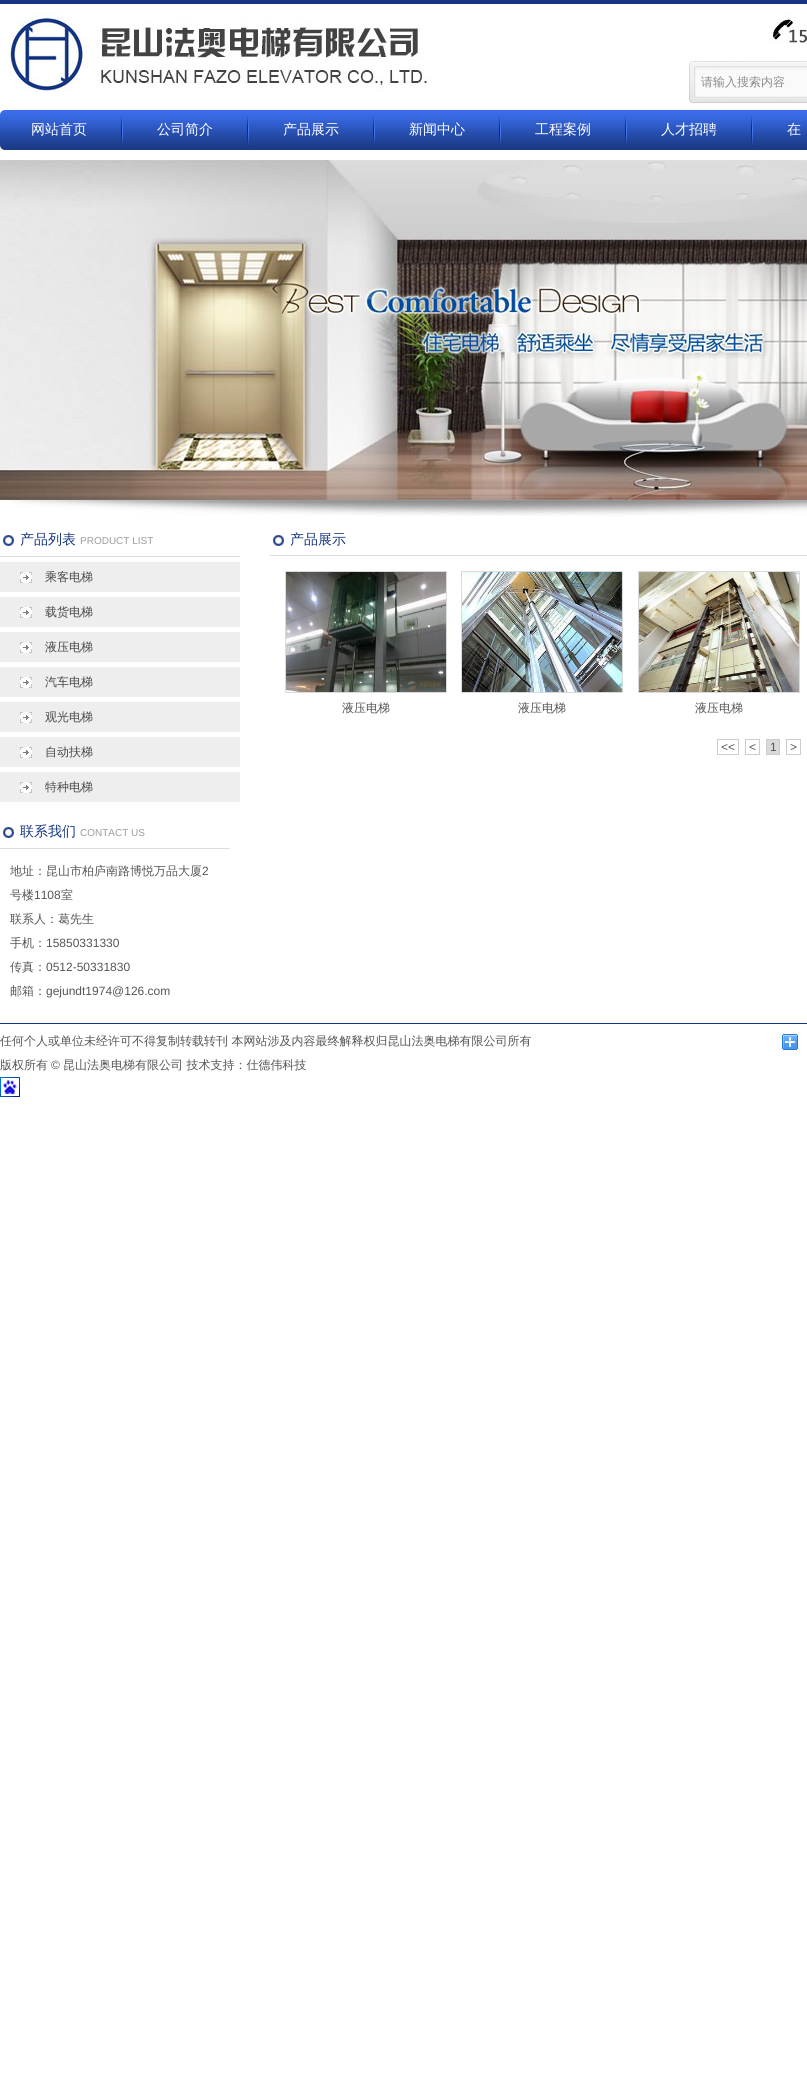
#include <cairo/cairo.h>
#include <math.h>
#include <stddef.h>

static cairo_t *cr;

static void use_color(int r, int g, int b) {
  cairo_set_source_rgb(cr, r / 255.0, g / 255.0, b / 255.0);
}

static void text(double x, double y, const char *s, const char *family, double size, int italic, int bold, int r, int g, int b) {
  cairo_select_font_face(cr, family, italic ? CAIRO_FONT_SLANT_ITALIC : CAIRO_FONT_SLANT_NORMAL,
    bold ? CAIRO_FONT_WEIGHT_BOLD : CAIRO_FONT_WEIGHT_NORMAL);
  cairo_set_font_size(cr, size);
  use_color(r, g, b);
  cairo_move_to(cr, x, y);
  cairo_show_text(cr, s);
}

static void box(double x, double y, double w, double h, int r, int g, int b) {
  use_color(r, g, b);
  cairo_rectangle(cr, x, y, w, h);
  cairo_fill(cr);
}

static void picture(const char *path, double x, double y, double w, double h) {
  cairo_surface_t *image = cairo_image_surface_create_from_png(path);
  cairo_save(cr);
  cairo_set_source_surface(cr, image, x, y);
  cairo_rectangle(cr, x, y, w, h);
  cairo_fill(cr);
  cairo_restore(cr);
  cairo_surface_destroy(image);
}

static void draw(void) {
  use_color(255, 255, 255);
  cairo_paint(cr);
  box(0, 0, 807, 4, 22, 54, 131);
  picture("img_01.png", 8, 12, 799, 80);
  picture("img_02.png", 689, 61, 118, 42);
  picture("img_03.png", 0, 110, 807, 40);
  picture("img_04.png", 121, 116, 2, 30);
  picture("img_04.png", 247, 116, 2, 30);
  picture("img_04.png", 373, 116, 2, 30);
  picture("img_04.png", 499, 116, 2, 30);
  picture("img_04.png", 625, 116, 2, 30);
  picture("img_04.png", 751, 116, 2, 30);
  picture("img_05.png", 11, 500, 796, 16);
  picture("img_06.png", 0, 160, 807, 340);
  picture("img_07.png", 3, 535, 11, 11);
  box(0, 556, 240, 1, 221, 221, 221);
  box(0, 562, 240, 30, 238, 238, 238);
  picture("img_08.png", 20, 572, 12, 11);
  box(0, 597, 240, 30, 238, 238, 238);
  picture("img_08.png", 20, 607, 12, 11);
  box(0, 632, 240, 30, 238, 238, 238);
  picture("img_08.png", 20, 642, 12, 11);
  box(0, 667, 240, 30, 238, 238, 238);
  picture("img_08.png", 20, 677, 12, 11);
  box(0, 702, 240, 30, 238, 238, 238);
  picture("img_08.png", 20, 712, 12, 11);
  box(0, 737, 240, 30, 238, 238, 238);
  picture("img_08.png", 20, 747, 12, 11);
  box(0, 772, 240, 30, 238, 238, 238);
  picture("img_08.png", 20, 782, 12, 11);
  picture("img_07.png", 3, 827, 11, 11);
  box(0, 848, 230, 1, 221, 221, 221);
  picture("img_07.png", 273, 535, 11, 11);
  box(270, 555, 537, 1, 221, 221, 221);
  cairo_rectangle(cr, 285.5, 571.5, 161, 121);
  use_color(218, 218, 218);
  cairo_set_line_width(cr, 1);
  cairo_stroke(cr);
  picture("img_09.png", 286, 572, 160, 120);
  cairo_rectangle(cr, 461.5, 571.5, 161, 121);
  cairo_stroke(cr);
  picture("img_10.png", 462, 572, 160, 120);
  cairo_rectangle(cr, 638.5, 571.5, 161, 121);
  cairo_stroke(cr);
  picture("img_11.png", 639, 572, 160, 120);
  cairo_rectangle(cr, 717.5, 739.5, 21, 15);
  use_color(204, 204, 204);
  cairo_stroke(cr);
  cairo_rectangle(cr, 745.5, 739.5, 14, 15);
  cairo_stroke(cr);
  use_color(218, 218, 218);
  cairo_rectangle(cr, 766.5, 739.5, 13, 15);
  cairo_fill_preserve(cr);
  use_color(204, 204, 204);
  cairo_stroke(cr);
  cairo_rectangle(cr, 786.5, 739.5, 14, 15);
  cairo_stroke(cr);
  box(0, 1023, 807, 1, 22, 54, 130);
  picture("img_12.png", 782, 1034, 16, 16);
  picture("img_13.png", 0, 1077, 20, 20);
  text(701, 86, "请输入搜索内容", "WenQuanYi Zen Hei Medium", 12, 0, 0, 139, 139, 139);
  text(31, 134, "网站首页", "WenQuanYi Zen Hei Medium", 14, 0, 0, 255, 255, 255);
  text(157, 134, "公司简介", "WenQuanYi Zen Hei Medium", 14, 0, 0, 255, 255, 255);
  text(283, 134, "产品展示", "WenQuanYi Zen Hei Medium", 14, 0, 0, 255, 255, 255);
  text(409, 134, "新闻中心", "WenQuanYi Zen Hei Medium", 14, 0, 0, 255, 255, 255);
  text(535, 134, "工程案例", "WenQuanYi Zen Hei Medium", 14, 0, 0, 255, 255, 255);
  text(661, 134, "人才招聘", "WenQuanYi Zen Hei Medium", 14, 0, 0, 255, 255, 255);
  text(787, 134, "在", "WenQuanYi Zen Hei Medium", 14, 0, 0, 255, 255, 255);
  text(20, 544, "产品列表", "WenQuanYi Zen Hei Medium", 14, 0, 0, 22, 54, 130);
  text(80, 544, "PRODUCT LIST", "Liberation Sans", 10, 0, 0, 156, 156, 156);
  text(45, 581, "乘客电梯", "WenQuanYi Zen Hei Medium", 12, 0, 0, 72, 72, 72);
  text(45, 616, "载货电梯", "WenQuanYi Zen Hei Medium", 12, 0, 0, 72, 72, 72);
  text(45, 651, "液压电梯", "WenQuanYi Zen Hei Medium", 12, 0, 0, 72, 72, 72);
  text(45, 686, "汽车电梯", "WenQuanYi Zen Hei Medium", 12, 0, 0, 72, 72, 72);
  text(45, 721, "观光电梯", "WenQuanYi Zen Hei Medium", 12, 0, 0, 72, 72, 72);
  text(45, 756, "自动扶梯", "WenQuanYi Zen Hei Medium", 12, 0, 0, 72, 72, 72);
  text(45, 791, "特种电梯", "WenQuanYi Zen Hei Medium", 12, 0, 0, 72, 72, 72);
  text(20, 836, "联系我们", "WenQuanYi Zen Hei Medium", 14, 0, 0, 22, 54, 130);
  text(80, 836, "CONTACT US", "Liberation Sans", 10, 0, 0, 156, 156, 156);
  text(10, 875, "地址：昆山市柏庐南路博悦万品大厦", "WenQuanYi Zen Hei Medium", 12, 0, 0, 85, 85, 85);
  text(202, 875, "2", "Liberation Sans", 12, 0, 0, 85, 85, 85);
  text(10, 899, "号楼", "WenQuanYi Zen Hei Medium", 12, 0, 0, 85, 85, 85);
  text(34, 899, "1108", "Liberation Sans", 12, 0, 0, 85, 85, 85);
  text(61, 899, "室", "WenQuanYi Zen Hei Medium", 12, 0, 0, 85, 85, 85);
  text(10, 923, "联系人：葛先生", "WenQuanYi Zen Hei Medium", 12, 0, 0, 85, 85, 85);
  text(10, 947, "手机：", "WenQuanYi Zen Hei Medium", 12, 0, 0, 85, 85, 85);
  text(46, 947, "15850331330", "Liberation Sans", 12, 0, 0, 85, 85, 85);
  text(10, 971, "传真：", "WenQuanYi Zen Hei Medium", 12, 0, 0, 85, 85, 85);
  text(46, 971, "0512-50331830", "Liberation Sans", 12, 0, 0, 85, 85, 85);
  text(10, 995, "邮箱：", "WenQuanYi Zen Hei Medium", 12, 0, 0, 85, 85, 85);
  text(46, 995, "gejundt1974@126.com", "Liberation Sans", 12, 0, 0, 85, 85, 85);
  text(290, 544, "产品展示", "WenQuanYi Zen Hei Medium", 14, 0, 0, 22, 54, 130);
  text(342, 712, "液压电梯", "WenQuanYi Zen Hei Medium", 12, 0, 0, 85, 85, 85);
  text(518, 712, "液压电梯", "WenQuanYi Zen Hei Medium", 12, 0, 0, 85, 85, 85);
  text(695, 712, "液压电梯", "WenQuanYi Zen Hei Medium", 12, 0, 0, 85, 85, 85);
  text(721, 751, "<<", "Liberation Sans", 12, 0, 0, 85, 85, 85);
  text(749, 751, "<", "Liberation Sans", 12, 0, 0, 85, 85, 85);
  text(770, 751, "1", "Liberation Sans", 12, 0, 0, 85, 85, 85);
  text(790, 751, ">", "Liberation Sans", 12, 0, 0, 85, 85, 85);
  text(0, 1045, "任何个人或单位未经许可不得复制转载转刊 本网站涉及内容最终解释权归昆山法奥电梯有限公司所有", "WenQuanYi Zen Hei Medium", 12, 0, 0, 85, 85, 85);
  text(0, 1069, "版权所有", "WenQuanYi Zen Hei Medium", 12, 0, 0, 85, 85, 85);
  text(51, 1069, "©", "Liberation Sans", 12, 0, 0, 85, 85, 85);
  text(63, 1069, "昆山法奥电梯有限公司 技术支持：仕德伟科技", "WenQuanYi Zen Hei Medium", 12, 0, 0, 85, 85, 85);
}

int main(void) {
  cairo_surface_t *surface = cairo_image_surface_create(CAIRO_FORMAT_RGB24, 807, 2086);
  cr = cairo_create(surface);
  cairo_font_options_t *options = cairo_font_options_create();
  cairo_font_options_set_hint_metrics(options, CAIRO_HINT_METRICS_OFF);
  cairo_font_options_set_hint_style(options, CAIRO_HINT_STYLE_NONE);
  cairo_set_font_options(cr, options);
  cairo_set_miter_limit(cr, 4);
  draw();
  cairo_surface_write_to_png(surface, "out.png");
  cairo_font_options_destroy(options);
  cairo_destroy(cr);
  cairo_surface_destroy(surface);
  return 0;
}
